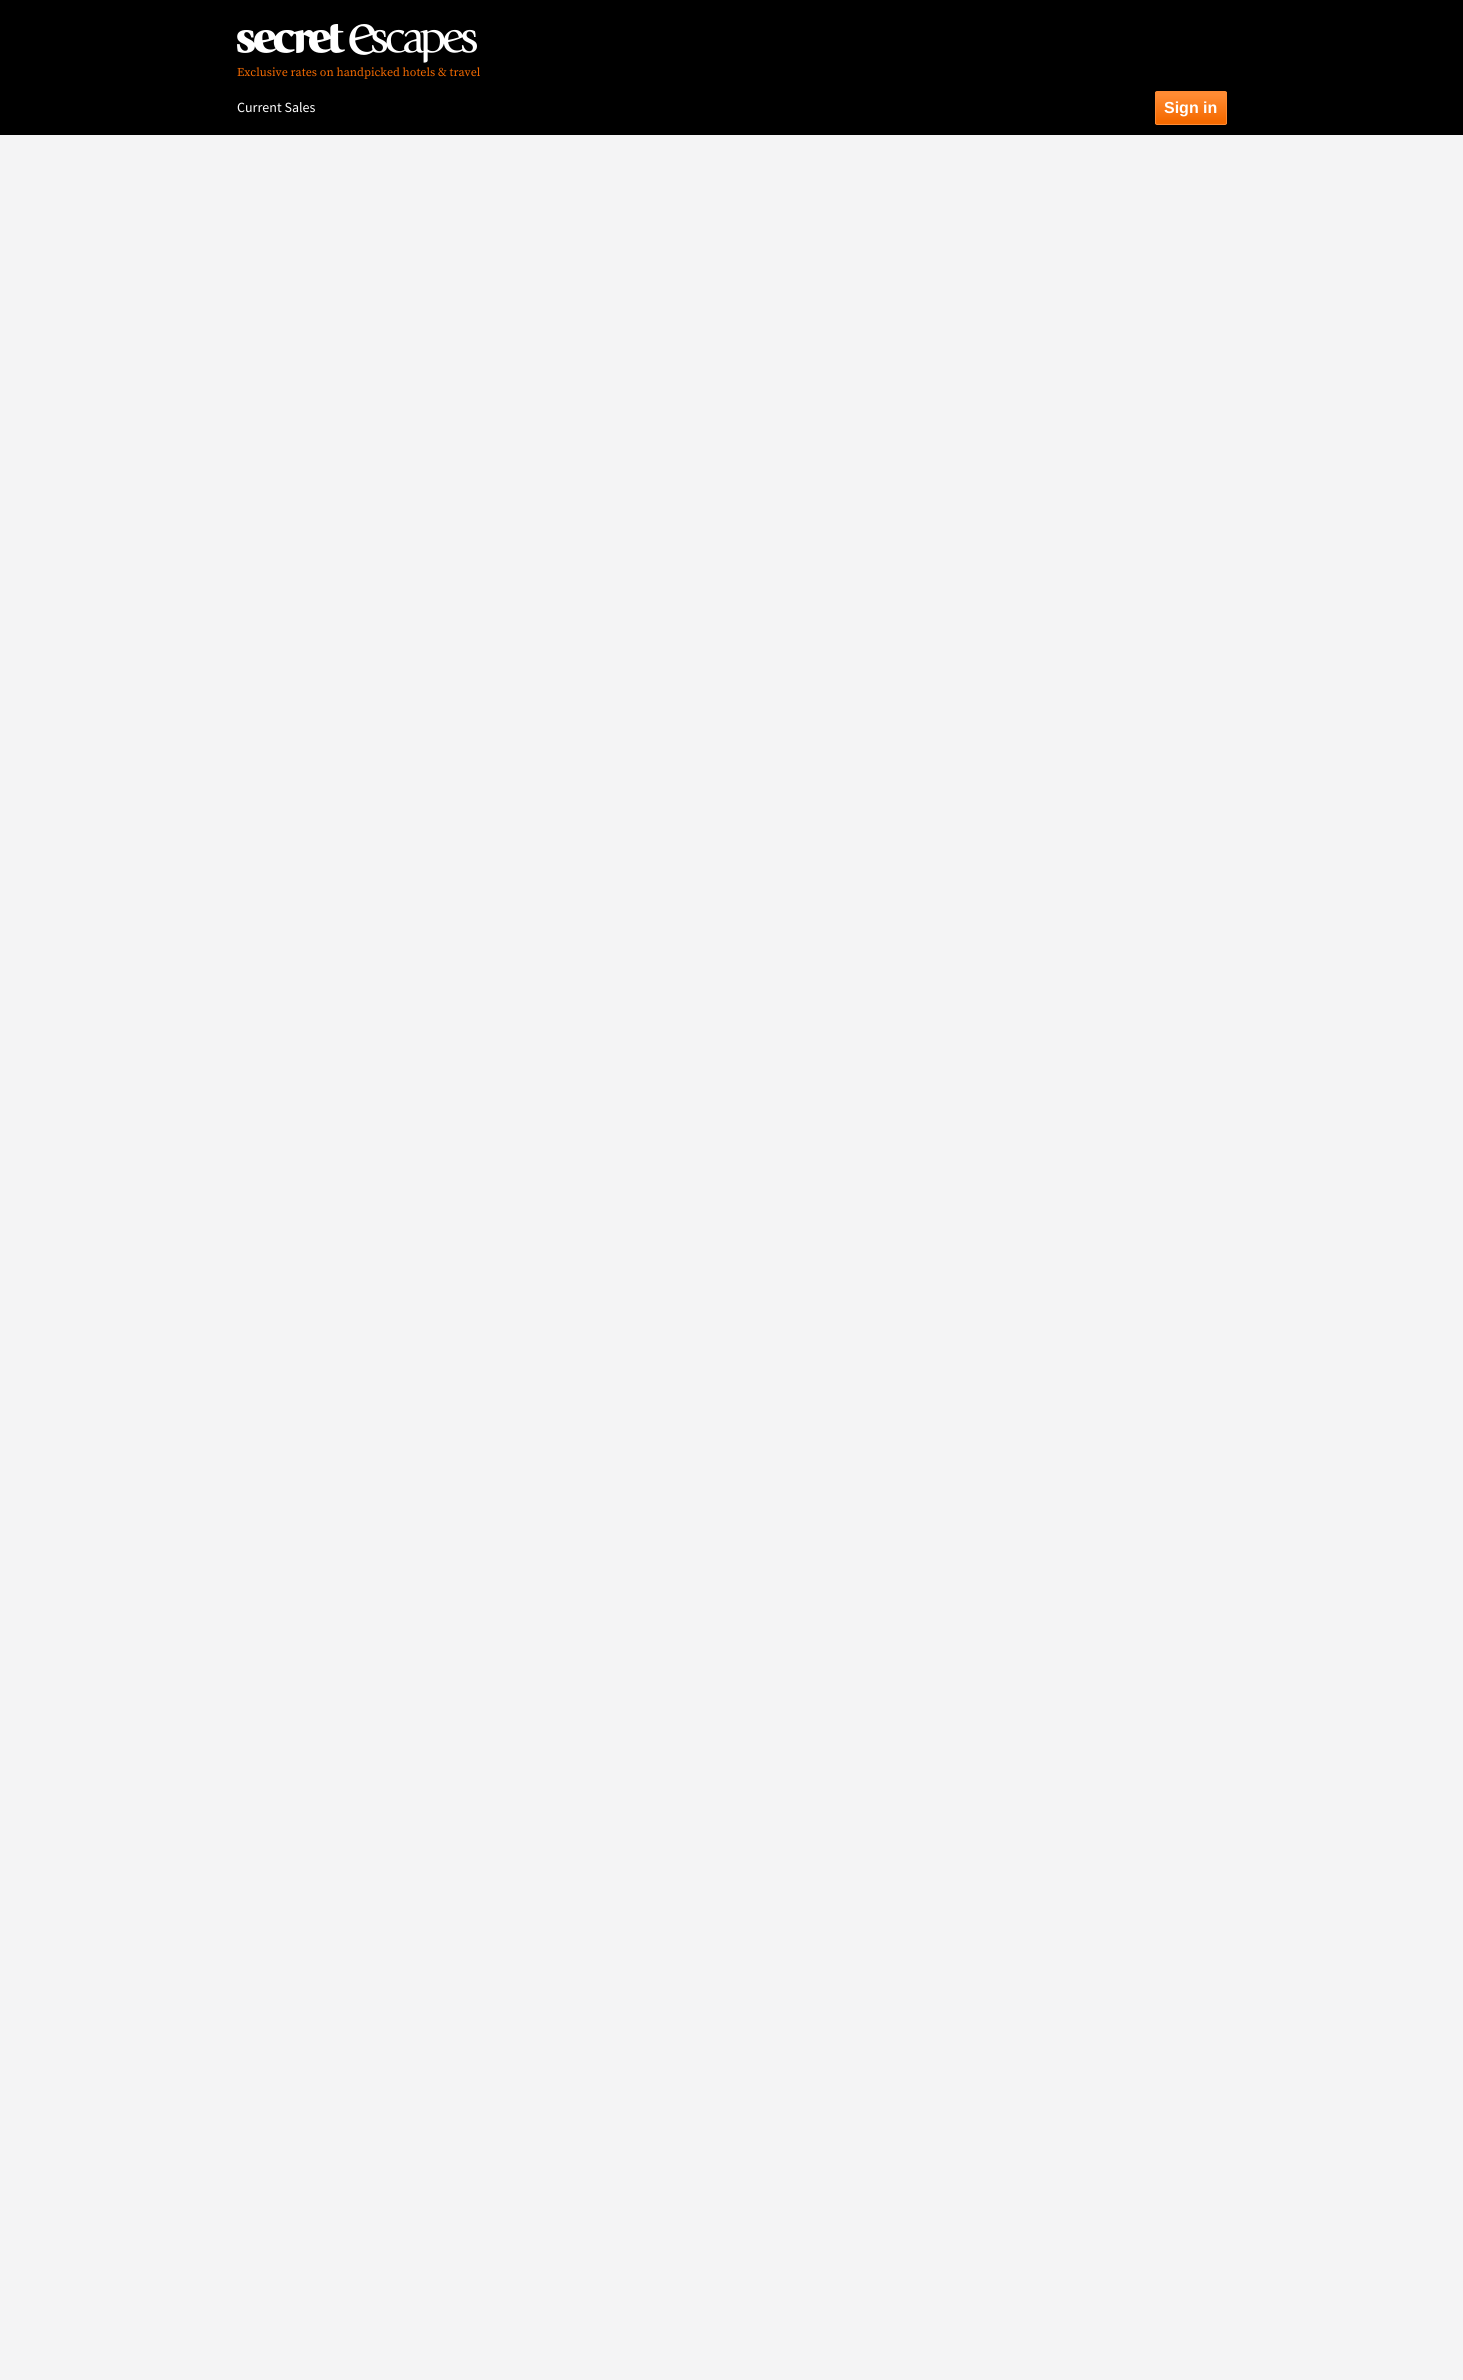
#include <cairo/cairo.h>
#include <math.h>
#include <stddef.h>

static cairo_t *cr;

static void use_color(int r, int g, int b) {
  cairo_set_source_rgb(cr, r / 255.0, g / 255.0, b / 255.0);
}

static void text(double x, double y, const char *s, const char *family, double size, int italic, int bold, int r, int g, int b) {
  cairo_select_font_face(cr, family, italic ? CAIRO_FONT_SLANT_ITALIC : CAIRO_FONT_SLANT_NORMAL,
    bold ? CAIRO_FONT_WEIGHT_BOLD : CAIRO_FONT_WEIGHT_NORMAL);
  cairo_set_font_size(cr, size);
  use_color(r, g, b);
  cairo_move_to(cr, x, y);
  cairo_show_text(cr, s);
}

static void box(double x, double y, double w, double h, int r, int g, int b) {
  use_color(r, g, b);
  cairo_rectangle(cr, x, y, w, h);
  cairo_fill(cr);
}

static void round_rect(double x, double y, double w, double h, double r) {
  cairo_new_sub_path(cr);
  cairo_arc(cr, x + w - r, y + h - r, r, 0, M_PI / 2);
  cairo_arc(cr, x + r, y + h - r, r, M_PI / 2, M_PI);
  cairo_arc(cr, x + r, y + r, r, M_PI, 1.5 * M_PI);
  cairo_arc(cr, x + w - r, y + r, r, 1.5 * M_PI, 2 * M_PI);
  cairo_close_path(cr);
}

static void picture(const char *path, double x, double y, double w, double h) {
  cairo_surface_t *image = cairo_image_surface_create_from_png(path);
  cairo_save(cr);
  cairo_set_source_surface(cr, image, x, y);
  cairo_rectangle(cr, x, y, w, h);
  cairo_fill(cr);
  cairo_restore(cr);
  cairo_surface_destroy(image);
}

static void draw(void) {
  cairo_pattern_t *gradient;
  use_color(244, 244, 245);
  cairo_paint(cr);
  box(0, 0, 1463, 135, 0, 0, 0);
  picture("img_01.png", 237, 24, 240, 39);
  cairo_save(cr);
  round_rect(1155, 91, 72, 34, 2);
  cairo_clip(cr);
  gradient = cairo_pattern_create_linear(1191, 92, 1191, 124);
  cairo_pattern_add_color_stop_rgba(gradient, 0.1, 1, 0.545, 0.2, 1);
  cairo_pattern_add_color_stop_rgba(gradient, 0.9, 0.961, 0.416, 0, 1);
  cairo_set_source(cr, gradient);
  cairo_pattern_destroy(gradient);
  cairo_rectangle(cr, 1155, 92, 72, 32);
  cairo_fill(cr);
  cairo_restore(cr);
  round_rect(1155.5, 91.5, 71, 33, 1.5);
  use_color(255, 139, 51);
  cairo_set_line_width(cr, 1);
  cairo_stroke(cr);
  text(237, 76, "Exclusive rates on handpicked hotels & travel", "Source Serif Pro", 12, 0, 0, 245, 106, 0);
  text(237, 112, "Current Sales", "Source Sans Pro", 14, 0, 0, 255, 255, 255);
  text(1164, 113, "Sign in", "Liberation Sans", 16, 0, 1, 255, 255, 255);
}

int main(void) {
  cairo_surface_t *surface = cairo_image_surface_create(CAIRO_FORMAT_RGB24, 1463, 2380);
  cr = cairo_create(surface);
  cairo_font_options_t *options = cairo_font_options_create();
  cairo_font_options_set_hint_metrics(options, CAIRO_HINT_METRICS_OFF);
  cairo_font_options_set_hint_style(options, CAIRO_HINT_STYLE_NONE);
  cairo_set_font_options(cr, options);
  cairo_set_miter_limit(cr, 4);
  draw();
  cairo_surface_write_to_png(surface, "out.png");
  cairo_font_options_destroy(options);
  cairo_destroy(cr);
  cairo_surface_destroy(surface);
  return 0;
}
